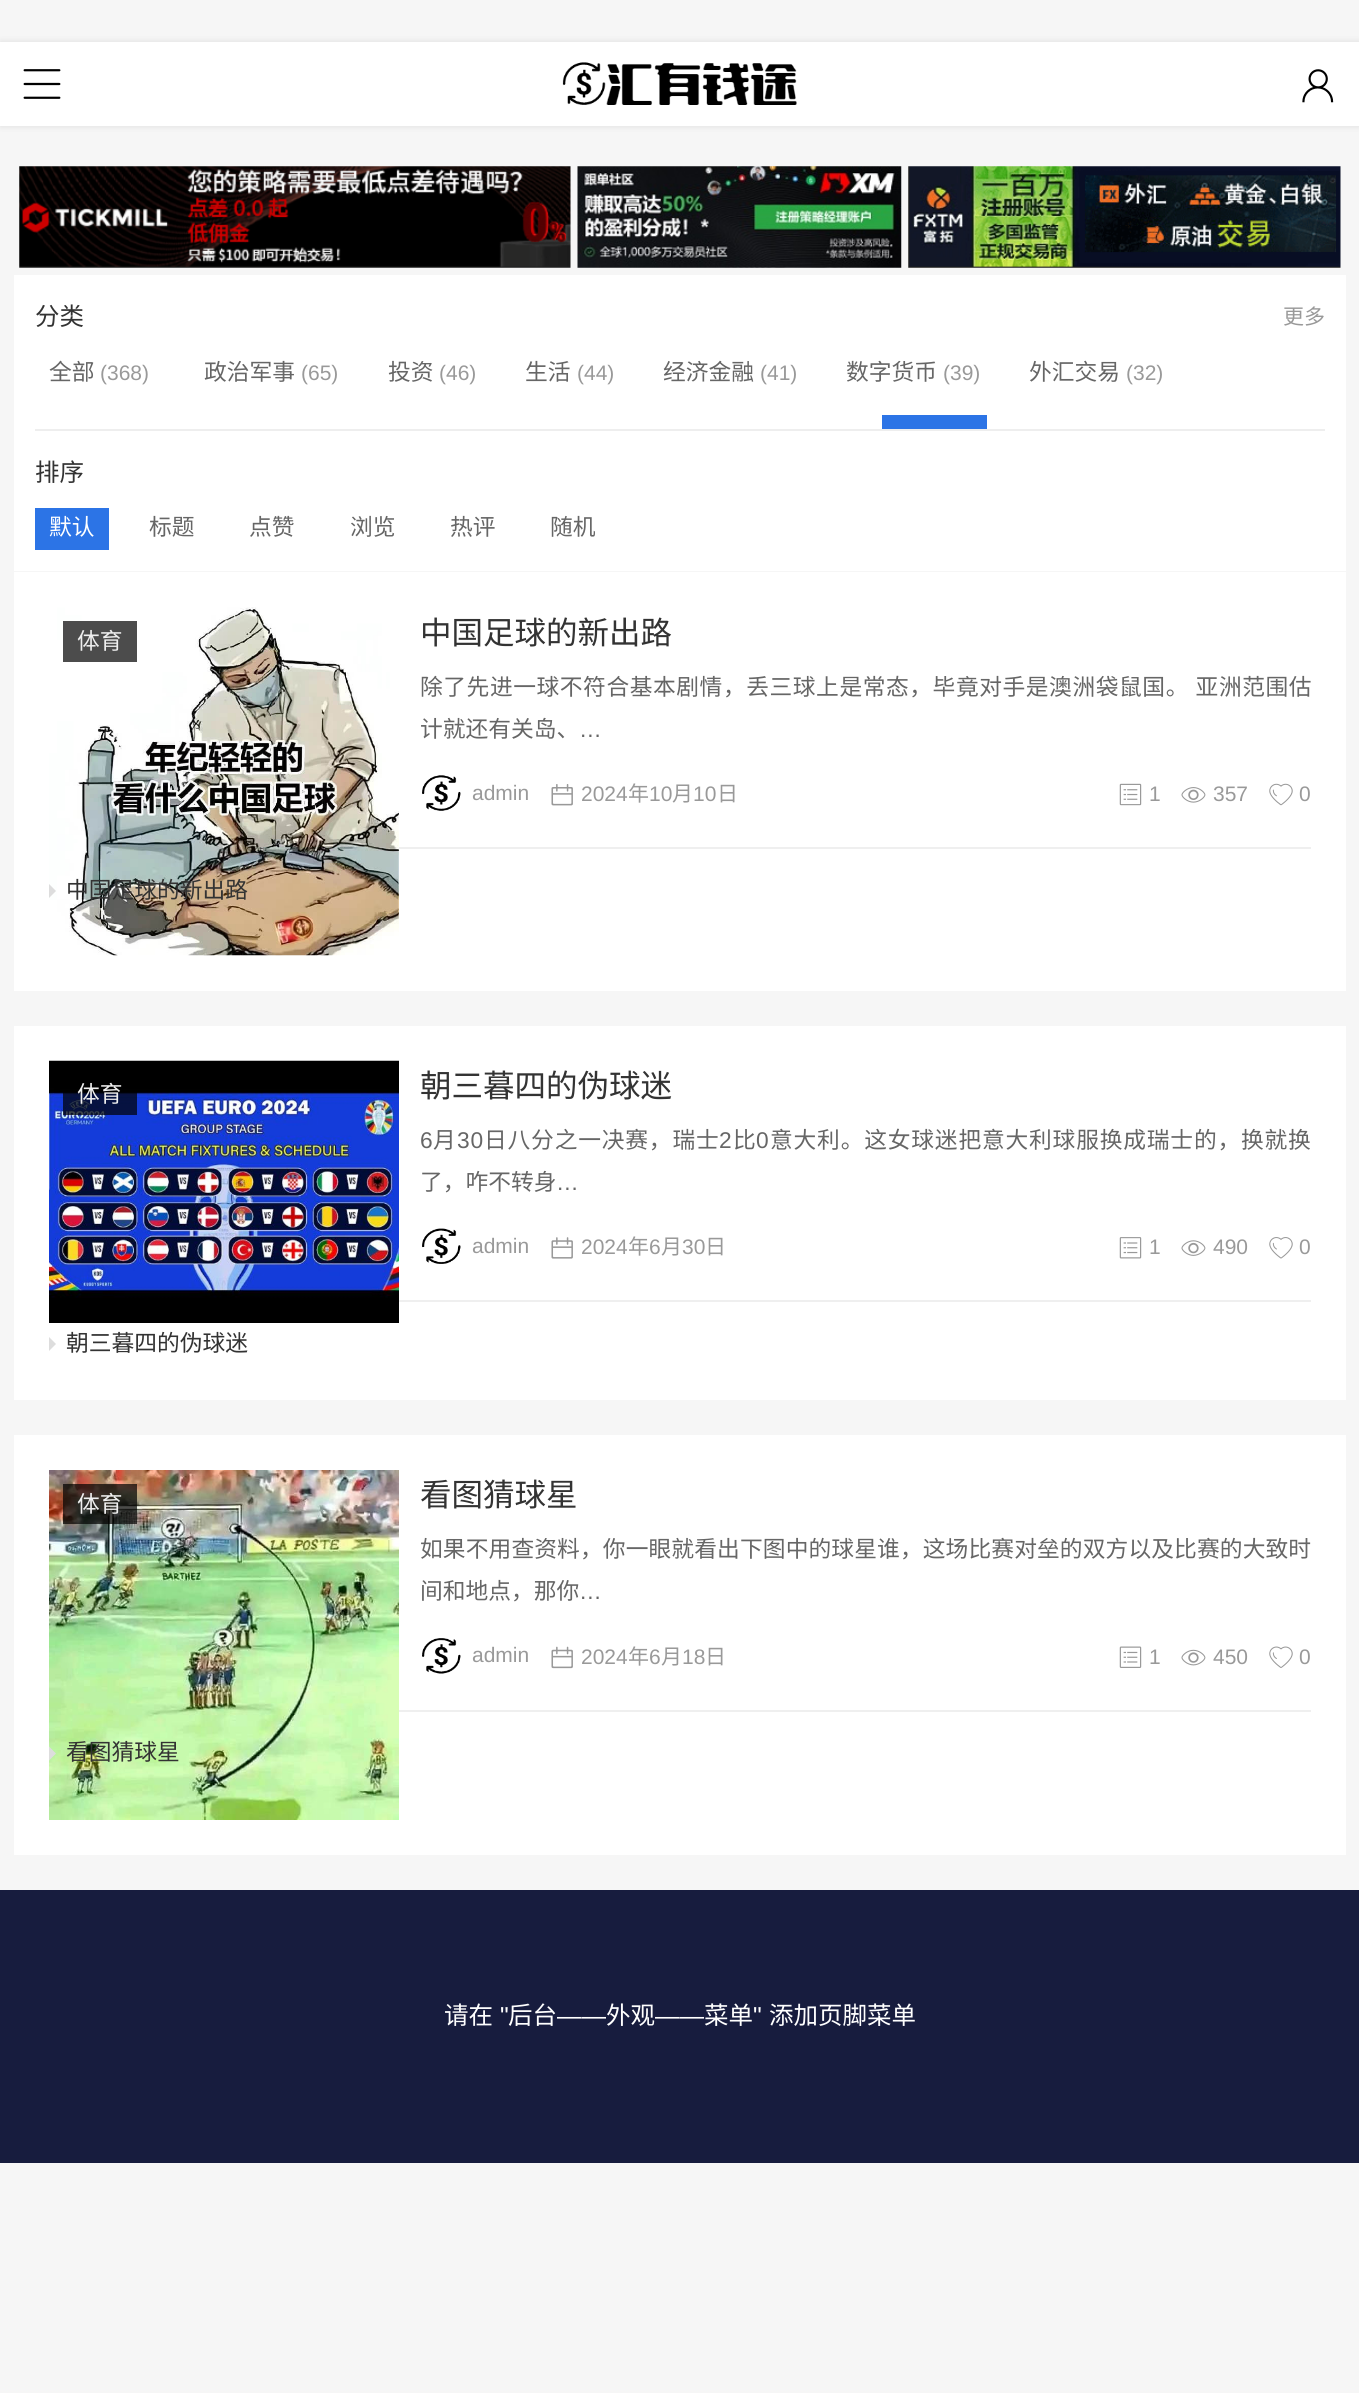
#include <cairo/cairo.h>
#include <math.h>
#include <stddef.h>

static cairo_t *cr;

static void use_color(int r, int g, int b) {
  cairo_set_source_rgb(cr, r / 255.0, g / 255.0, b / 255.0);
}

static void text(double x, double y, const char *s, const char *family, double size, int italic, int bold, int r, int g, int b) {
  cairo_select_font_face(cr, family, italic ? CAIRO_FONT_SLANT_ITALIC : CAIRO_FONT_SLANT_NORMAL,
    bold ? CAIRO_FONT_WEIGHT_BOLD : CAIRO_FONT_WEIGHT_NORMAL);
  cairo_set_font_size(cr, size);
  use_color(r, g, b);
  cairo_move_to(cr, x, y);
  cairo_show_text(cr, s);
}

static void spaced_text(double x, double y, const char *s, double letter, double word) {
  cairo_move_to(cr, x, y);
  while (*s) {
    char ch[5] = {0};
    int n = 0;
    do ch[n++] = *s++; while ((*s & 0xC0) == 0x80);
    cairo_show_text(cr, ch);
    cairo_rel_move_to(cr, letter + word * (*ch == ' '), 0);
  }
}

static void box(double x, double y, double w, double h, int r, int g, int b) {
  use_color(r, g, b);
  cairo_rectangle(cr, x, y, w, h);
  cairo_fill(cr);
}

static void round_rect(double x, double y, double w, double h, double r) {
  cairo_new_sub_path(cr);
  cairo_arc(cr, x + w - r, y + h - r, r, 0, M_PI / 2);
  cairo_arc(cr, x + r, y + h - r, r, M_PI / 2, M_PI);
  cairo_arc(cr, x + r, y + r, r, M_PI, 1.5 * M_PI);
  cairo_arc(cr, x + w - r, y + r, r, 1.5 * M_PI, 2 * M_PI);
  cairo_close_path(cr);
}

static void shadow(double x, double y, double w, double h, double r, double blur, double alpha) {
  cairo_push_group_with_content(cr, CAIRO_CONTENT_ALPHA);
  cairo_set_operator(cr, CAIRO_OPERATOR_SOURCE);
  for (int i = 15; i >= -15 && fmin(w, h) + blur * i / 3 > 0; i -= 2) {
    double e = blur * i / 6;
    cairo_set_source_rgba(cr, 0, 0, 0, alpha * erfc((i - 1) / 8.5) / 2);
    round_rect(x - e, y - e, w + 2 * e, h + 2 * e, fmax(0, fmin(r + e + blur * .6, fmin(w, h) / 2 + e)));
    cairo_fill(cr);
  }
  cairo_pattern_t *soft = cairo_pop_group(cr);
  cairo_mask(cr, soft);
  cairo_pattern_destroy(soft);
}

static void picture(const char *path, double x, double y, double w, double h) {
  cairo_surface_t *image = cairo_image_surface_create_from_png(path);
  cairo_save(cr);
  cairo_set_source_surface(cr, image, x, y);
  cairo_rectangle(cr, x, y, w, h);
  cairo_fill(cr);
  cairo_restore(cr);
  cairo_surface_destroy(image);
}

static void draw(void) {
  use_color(246, 246, 246);
  cairo_paint(cr);
  use_color(0, 0, 0);
  shadow(0, 42, 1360, 84, 0, 3.5, 0.1);
  box(0, 42, 1359, 84, 255, 255, 255);
  picture("img_01.png", 23, 69, 38, 30);
  picture("img_02.png", 562, 62, 235, 43);
  picture("img_03.png", 1302, 69, 32, 34);
  picture("img_04.png", 19, 166, 552, 102);
  picture("img_05.png", 577, 166, 325, 102);
  picture("img_06.png", 908, 166, 433, 102);
  box(14, 275, 1332, 296, 255, 255, 255);
  box(35, 429, 1290, 2, 238, 238, 238);
  box(882, 415, 105, 14, 44, 116, 230);
  box(35, 508, 74, 42, 44, 116, 230);
  box(14, 572, 1332, 419, 255, 255, 255);
  box(399, 847, 912, 2, 239, 239, 239);
  picture("img_07.png", 49, 607, 350, 349);
  box(63, 621, 74, 41, 76, 76, 76);
  picture("img_08.png", 422, 775, 39, 36);
  picture("img_09.png", 551, 784, 22, 22);
  picture("img_10.png", 1119, 783, 23, 23);
  picture("img_11.png", 1181, 787, 25, 16);
  picture("img_12.png", 1269, 783, 24, 23);
  use_color(221, 221, 221);
  cairo_new_path(cr);
  cairo_move_to(cr, 49, 898);
  cairo_line_to(cr, 49, 884);
  cairo_line_to(cr, 56, 891);
  cairo_close_path(cr);
  cairo_fill(cr);
  box(14, 1026, 1332, 374, 255, 255, 255);
  box(399, 1300, 912, 2, 239, 239, 239);
  picture("img_13.png", 49, 1060, 350, 263);
  cairo_set_source_rgba(cr, 0, 0, 0, 0.7);
  cairo_rectangle(cr, 63, 1092, 74, 23);
  cairo_fill(cr);
  picture("img_14.png", 422, 1228, 39, 36);
  picture("img_15.png", 551, 1237, 22, 22);
  picture("img_16.png", 1119, 1237, 23, 22);
  picture("img_17.png", 1181, 1240, 25, 16);
  picture("img_18.png", 1269, 1237, 24, 22);
  use_color(221, 221, 221);
  cairo_new_path(cr);
  cairo_move_to(cr, 49, 1351);
  cairo_line_to(cr, 49, 1337);
  cairo_line_to(cr, 56, 1344);
  cairo_close_path(cr);
  cairo_fill(cr);
  box(14, 1435, 1332, 420, 255, 255, 255);
  box(399, 1710, 912, 2, 239, 239, 239);
  picture("img_19.png", 49, 1470, 350, 350);
  cairo_set_source_rgba(cr, 0, 0, 0, 0.7);
  cairo_rectangle(cr, 63, 1484, 74, 40);
  cairo_fill(cr);
  picture("img_20.png", 422, 1638, 39, 36);
  picture("img_21.png", 551, 1646, 22, 23);
  picture("img_22.png", 1119, 1646, 23, 22);
  picture("img_23.png", 1181, 1649, 25, 17);
  picture("img_24.png", 1269, 1646, 24, 22);
  use_color(221, 221, 221);
  cairo_new_path(cr);
  cairo_move_to(cr, 49, 1760.5);
  cairo_line_to(cr, 49, 1746.5);
  cairo_line_to(cr, 56, 1753.5);
  cairo_close_path(cr);
  cairo_fill(cr);
  box(0, 1890, 1359, 273, 23, 28, 62);
  text(35, 325, "分类", "Noto Sans CJK SC", 24.5, 0, 0, 51, 51, 51);
  text(1283, 324, "更多", "Noto Sans CJK SC", 21, 0, 0, 153, 153, 153);
  text(49, 380, "全部", "Noto Sans CJK SC", 22.75, 0, 0, 102, 102, 102);
  text(100, 380, "(368)", "Liberation Sans", 21, 0, 0, 153, 153, 153);
  text(204, 380, "政治军事", "Noto Sans CJK SC", 22.75, 0, 0, 102, 102, 102);
  text(301, 380, "(65)", "Liberation Sans", 21, 0, 0, 153, 153, 153);
  text(388, 380, "投资", "Noto Sans CJK SC", 22.75, 0, 0, 102, 102, 102);
  text(439, 380, "(46)", "Liberation Sans", 21, 0, 0, 153, 153, 153);
  text(525, 380, "生活", "Noto Sans CJK SC", 22.75, 0, 0, 102, 102, 102);
  text(577, 380, "(44)", "Liberation Sans", 21, 0, 0, 153, 153, 153);
  text(663, 380, "经济金融", "Noto Sans CJK SC", 22.75, 0, 0, 102, 102, 102);
  text(760, 380, "(41)", "Liberation Sans", 21, 0, 0, 153, 153, 153);
  text(846, 380, "数字货币", "Noto Sans CJK SC", 22.75, 0, 0, 102, 102, 102);
  text(943, 380, "(39)", "Liberation Sans", 21, 0, 0, 153, 153, 153);
  text(1029, 380, "外汇交易", "Noto Sans CJK SC", 22.75, 0, 0, 102, 102, 102);
  text(1126, 380, "(32)", "Liberation Sans", 21, 0, 0, 153, 153, 153);
  text(35, 481, "排序", "Noto Sans CJK SC", 24.5, 0, 0, 51, 51, 51);
  text(49, 535, "默认", "Noto Sans CJK SC", 22.75, 0, 0, 255, 255, 255);
  text(149, 535, "标题", "Noto Sans CJK SC", 22.75, 0, 0, 102, 102, 102);
  text(249, 535, "点赞", "Noto Sans CJK SC", 22.75, 0, 0, 102, 102, 102);
  text(350, 535, "浏览", "Noto Sans CJK SC", 22.75, 0, 0, 102, 102, 102);
  text(450, 535, "热评", "Noto Sans CJK SC", 22.75, 0, 0, 102, 102, 102);
  text(550, 535, "随机", "Noto Sans CJK SC", 22.75, 0, 0, 102, 102, 102);
  text(420, 644, "中国足球的新出路", "Noto Sans CJK SC", 31.5, 0, 0, 51, 51, 51);
  text(77, 649, "体育", "Noto Sans CJK SC", 22.75, 0, 0, 239, 239, 239);
  use_color(102, 102, 102);
  spaced_text(420, 695, "除了先进一球不符合基本剧情，丢三球上是常态，毕竟对手是澳洲袋鼠国。 亚洲范围估", 0.55, 1);
  text(420, 737, "计就还有关岛、", "Noto Sans CJK SC", 22.75, 0, 0, 102, 102, 102);
  text(579, 737, "…", "Liberation Sans", 22.75, 0, 0, 102, 102, 102);
  text(472, 800, "admin", "Liberation Sans", 21, 0, 0, 153, 153, 153);
  text(581, 801, "2024", "Liberation Sans", 21, 0, 0, 153, 153, 153);
  text(628, 801, "年", "Noto Sans CJK SC", 21, 0, 0, 153, 153, 153);
  text(649, 801, "10", "Liberation Sans", 21, 0, 0, 153, 153, 153);
  text(672, 801, "月", "Noto Sans CJK SC", 21, 0, 0, 153, 153, 153);
  text(693, 801, "10", "Liberation Sans", 21, 0, 0, 153, 153, 153);
  text(717, 801, "日", "Noto Sans CJK SC", 21, 0, 0, 153, 153, 153);
  text(1149, 801, "1", "Liberation Sans", 21, 0, 0, 153, 153, 153);
  text(1213, 801, "357", "Liberation Sans", 21, 0, 0, 153, 153, 153);
  text(1299, 801, "0", "Liberation Sans", 21, 0, 0, 153, 153, 153);
  text(66, 898, "中国足球的新出路", "Noto Sans CJK SC", 22.75, 0, 0, 51, 51, 51);
  text(420, 1097, "朝三暮四的伪球迷", "Noto Sans CJK SC", 31.5, 0, 0, 51, 51, 51);
  text(77, 1102, "体育", "Noto Sans CJK SC", 22.75, 0, 0, 239, 239, 239);
  cairo_select_font_face(cr, "Liberation Sans", CAIRO_FONT_SLANT_NORMAL, CAIRO_FONT_WEIGHT_NORMAL);
  use_color(102, 102, 102);
  spaced_text(420, 1148, "6", 0.8, 0);
  cairo_select_font_face(cr, "Noto Sans CJK SC", CAIRO_FONT_SLANT_NORMAL, CAIRO_FONT_WEIGHT_NORMAL);
  spaced_text(433, 1148, "月", 0.8, 0);
  cairo_select_font_face(cr, "Liberation Sans", CAIRO_FONT_SLANT_NORMAL, CAIRO_FONT_WEIGHT_NORMAL);
  spaced_text(457, 1148, "30", 0.8, 0);
  cairo_select_font_face(cr, "Noto Sans CJK SC", CAIRO_FONT_SLANT_NORMAL, CAIRO_FONT_WEIGHT_NORMAL);
  spaced_text(484, 1148, "日八分之一决赛，瑞士", 0.8, 0);
  cairo_select_font_face(cr, "Liberation Sans", CAIRO_FONT_SLANT_NORMAL, CAIRO_FONT_WEIGHT_NORMAL);
  spaced_text(719, 1148, "2", 0.8, 0);
  cairo_select_font_face(cr, "Noto Sans CJK SC", CAIRO_FONT_SLANT_NORMAL, CAIRO_FONT_WEIGHT_NORMAL);
  spaced_text(733, 1148, "比", 0.8, 0);
  cairo_select_font_face(cr, "Liberation Sans", CAIRO_FONT_SLANT_NORMAL, CAIRO_FONT_WEIGHT_NORMAL);
  spaced_text(756, 1148, "0", 0.8, 0);
  cairo_select_font_face(cr, "Noto Sans CJK SC", CAIRO_FONT_SLANT_NORMAL, CAIRO_FONT_WEIGHT_NORMAL);
  spaced_text(770, 1148, "意大利。这女球迷把意大利球服换成瑞士的，换就换", 0.8, 0);
  text(420, 1190, "了，咋不转身", "Noto Sans CJK SC", 22.75, 0, 0, 102, 102, 102);
  text(556, 1190, "…", "Liberation Sans", 22.75, 0, 0, 102, 102, 102);
  text(472, 1253, "admin", "Liberation Sans", 21, 0, 0, 153, 153, 153);
  text(581, 1254, "2024", "Liberation Sans", 21, 0, 0, 153, 153, 153);
  text(628, 1254, "年", "Noto Sans CJK SC", 21, 0, 0, 153, 153, 153);
  text(649, 1254, "6", "Liberation Sans", 21, 0, 0, 153, 153, 153);
  text(661, 1254, "月", "Noto Sans CJK SC", 21, 0, 0, 153, 153, 153);
  text(682, 1254, "30", "Liberation Sans", 21, 0, 0, 153, 153, 153);
  text(705, 1254, "日", "Noto Sans CJK SC", 21, 0, 0, 153, 153, 153);
  text(1149, 1254, "1", "Liberation Sans", 21, 0, 0, 153, 153, 153);
  text(1213, 1254, "490", "Liberation Sans", 21, 0, 0, 153, 153, 153);
  text(1299, 1254, "0", "Liberation Sans", 21, 0, 0, 153, 153, 153);
  text(66, 1351, "朝三暮四的伪球迷", "Noto Sans CJK SC", 22.75, 0, 0, 51, 51, 51);
  text(420, 1506, "看图猜球星", "Noto Sans CJK SC", 31.5, 0, 0, 51, 51, 51);
  text(77, 1512, "体育", "Noto Sans CJK SC", 22.75, 0, 0, 239, 239, 239);
  use_color(102, 102, 102);
  spaced_text(420, 1557, "如果不用查资料，你一眼就看出下图中的球星谁，这场比赛对垒的双方以及比赛的大致时", 0.1, 0);
  text(420, 1599, "间和地点，那你", "Noto Sans CJK SC", 22.75, 0, 0, 102, 102, 102);
  text(579, 1599, "…", "Liberation Sans", 22.75, 0, 0, 102, 102, 102);
  text(472, 1662, "admin", "Liberation Sans", 21, 0, 0, 153, 153, 153);
  text(581, 1664, "2024", "Liberation Sans", 21, 0, 0, 153, 153, 153);
  text(628, 1664, "年", "Noto Sans CJK SC", 21, 0, 0, 153, 153, 153);
  text(649, 1664, "6", "Liberation Sans", 21, 0, 0, 153, 153, 153);
  text(661, 1664, "月", "Noto Sans CJK SC", 21, 0, 0, 153, 153, 153);
  text(682, 1664, "18", "Liberation Sans", 21, 0, 0, 153, 153, 153);
  text(705, 1664, "日", "Noto Sans CJK SC", 21, 0, 0, 153, 153, 153);
  text(1149, 1664, "1", "Liberation Sans", 21, 0, 0, 153, 153, 153);
  text(1213, 1664, "450", "Liberation Sans", 21, 0, 0, 153, 153, 153);
  text(1299, 1664, "0", "Liberation Sans", 21, 0, 0, 153, 153, 153);
  text(66, 1760, "看图猜球星", "Noto Sans CJK SC", 22.75, 0, 0, 51, 51, 51);
  text(444, 2024, "请在", "Noto Sans CJK SC", 24.5, 0, 0, 255, 255, 255);
  text(500, 2024, "\"", "Liberation Sans", 24.5, 0, 0, 255, 255, 255);
  text(508, 2024, "后台", "Noto Sans CJK SC", 24.5, 0, 0, 255, 255, 255);
  text(606, 2024, "外观", "Noto Sans CJK SC", 24.5, 0, 0, 255, 255, 255);
  text(704, 2024, "菜单", "Noto Sans CJK SC", 24.5, 0, 0, 255, 255, 255);
  text(753, 2024, "\"", "Liberation Sans", 24.5, 0, 0, 255, 255, 255);
  text(769, 2024, "添加页脚菜单", "Noto Sans CJK SC", 24.5, 0, 0, 255, 255, 255);
  text(557, 2024, "——", "Liberation Sans", 24.5, 0, 0, 255, 255, 255);
  text(655, 2024, "——", "Liberation Sans", 24.5, 0, 0, 255, 255, 255);
}

int main(void) {
  cairo_surface_t *surface = cairo_image_surface_create(CAIRO_FORMAT_RGB24, 1359, 2393);
  cr = cairo_create(surface);
  cairo_font_options_t *options = cairo_font_options_create();
  cairo_font_options_set_hint_metrics(options, CAIRO_HINT_METRICS_OFF);
  cairo_font_options_set_hint_style(options, CAIRO_HINT_STYLE_NONE);
  cairo_set_font_options(cr, options);
  cairo_set_miter_limit(cr, 4);
  draw();
  cairo_surface_write_to_png(surface, "out.png");
  cairo_font_options_destroy(options);
  cairo_destroy(cr);
  cairo_surface_destroy(surface);
  return 0;
}
